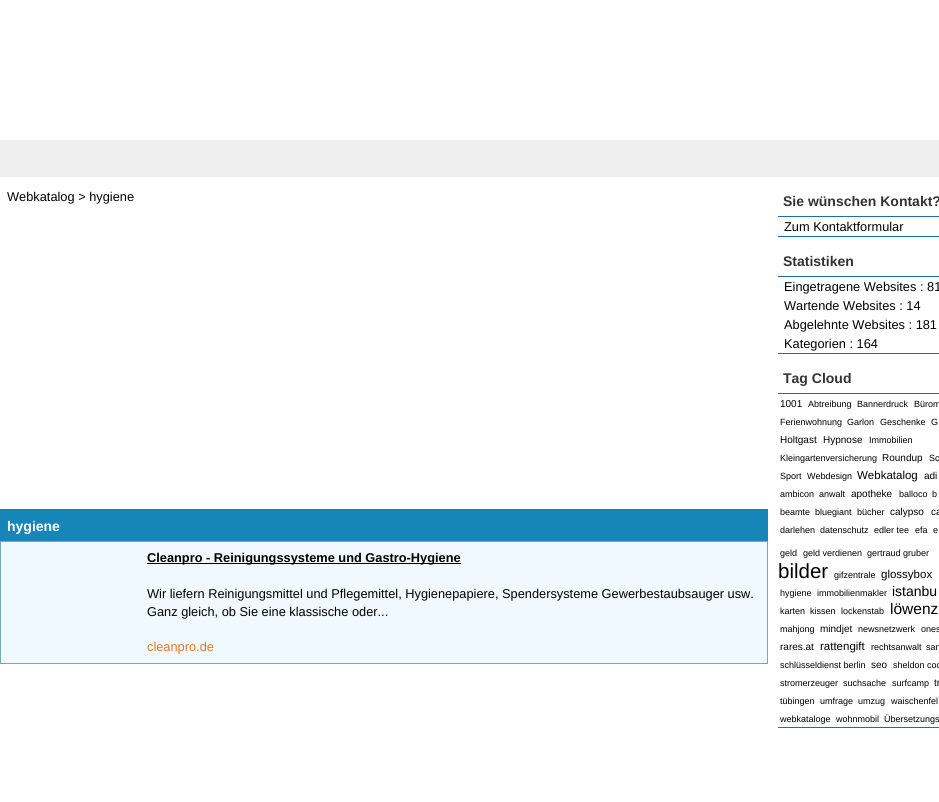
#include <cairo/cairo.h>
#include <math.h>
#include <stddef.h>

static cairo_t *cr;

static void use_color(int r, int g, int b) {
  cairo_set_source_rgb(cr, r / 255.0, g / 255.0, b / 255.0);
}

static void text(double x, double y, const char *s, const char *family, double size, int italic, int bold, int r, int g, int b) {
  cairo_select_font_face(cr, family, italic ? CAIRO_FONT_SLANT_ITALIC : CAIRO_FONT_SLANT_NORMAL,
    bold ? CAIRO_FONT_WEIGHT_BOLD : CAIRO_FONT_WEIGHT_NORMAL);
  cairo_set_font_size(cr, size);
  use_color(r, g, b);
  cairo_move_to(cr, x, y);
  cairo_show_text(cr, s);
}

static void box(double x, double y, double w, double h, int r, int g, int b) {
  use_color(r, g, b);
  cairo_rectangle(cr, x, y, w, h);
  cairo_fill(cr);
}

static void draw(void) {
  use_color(255, 255, 255);
  cairo_paint(cr);
  box(0, 140, 939, 37, 239, 239, 239);
  box(0, 509, 768, 32, 22, 133, 183);
  use_color(239, 249, 255);
  cairo_rectangle(cr, 0.5, 541.5, 767, 122);
  cairo_fill_preserve(cr);
  use_color(117, 168, 194);
  cairo_set_line_width(cr, 1);
  cairo_stroke(cr);
  box(147, 563, 314, 1, 0, 0, 0);
  box(778, 216, 161, 1, 30, 109, 171);
  box(778, 236, 161, 1, 30, 109, 171);
  box(778, 276, 161, 1, 30, 109, 171);
  box(778, 353, 161, 1, 30, 109, 171);
  box(778, 393, 161, 1, 30, 109, 171);
  box(778, 727, 161, 1, 30, 109, 171);
  text(7, 201, "Webkatalog > hygiene", "Liberation Sans", 12.8, 0, 0, 0, 0, 0);
  text(7, 531, "hygiene", "Liberation Sans", 14, 0, 1, 255, 255, 255);
  text(147, 562, "Cleanpro - Reinigungssysteme und Gastro-Hygiene", "Liberation Sans", 12.8, 0, 1, 0, 0, 0);
  text(147, 598, "Wir liefern Reinigungsmittel und Pflegemittel, Hygienepapiere, Spendersysteme Gewerbestaubsauger usw.", "Liberation Sans", 12.8, 0, 0, 0, 0, 0);
  text(147, 616, "Ganz gleich, ob Sie eine klassische oder...", "Liberation Sans", 12.8, 0, 0, 0, 0, 0);
  text(147, 651, "cleanpro.de", "Liberation Sans", 12.8, 0, 0, 231, 118, 35);
  text(783, 206, "Sie wünschen Kontakt?", "Liberation Sans", 14, 0, 1, 51, 51, 51);
  text(784, 231, "Zum Kontaktformular", "Liberation Sans", 12.8, 0, 0, 0, 0, 0);
  text(783, 266, "Statistiken", "Liberation Sans", 14, 0, 1, 51, 51, 51);
  text(784, 291, "Eingetragene Websites : 81", "Liberation Sans", 12.8, 0, 0, 0, 0, 0);
  text(784, 310, "Wartende Websites : 14", "Liberation Sans", 12.8, 0, 0, 0, 0, 0);
  text(784, 329, "Abgelehnte Websites : 181", "Liberation Sans", 12.8, 0, 0, 0, 0, 0);
  text(784, 348, "Kategorien : 164", "Liberation Sans", 12.8, 0, 0, 0, 0, 0);
  text(783, 383, "Tag Cloud", "Liberation Sans", 14, 0, 1, 51, 51, 51);
  text(780, 407, "1001", "Liberation Sans", 10, 0, 0, 0, 0, 0);
  text(808, 407, "Abtreibung", "Liberation Sans", 9, 0, 0, 0, 0, 0);
  text(857, 407, "Bannerdruck", "Liberation Sans", 9, 0, 0, 0, 0, 0);
  text(914, 407, "Bürom", "Liberation Sans", 9, 0, 0, 0, 0, 0);
  text(780, 425, "Ferienwohnung", "Liberation Sans", 9, 0, 0, 0, 0, 0);
  text(847, 425, "Garlon", "Liberation Sans", 9, 0, 0, 0, 0, 0);
  text(880, 425, "Geschenke", "Liberation Sans", 9, 0, 0, 0, 0, 0);
  text(931, 425, "G", "Liberation Sans", 9, 0, 0, 0, 0, 0);
  text(780, 443, "Holtgast", "Liberation Sans", 10, 0, 0, 0, 0, 0);
  text(823, 443, "Hypnose", "Liberation Sans", 10, 0, 0, 0, 0, 0);
  text(869, 443, "Immobilien", "Liberation Sans", 9, 0, 0, 0, 0, 0);
  text(780, 461, "Kleingartenversicherung", "Liberation Sans", 9, 0, 0, 0, 0, 0);
  text(882, 461, "Roundup", "Liberation Sans", 10, 0, 0, 0, 0, 0);
  text(929, 461, "Sc", "Liberation Sans", 9, 0, 0, 0, 0, 0);
  text(780, 479, "Sport", "Liberation Sans", 9, 0, 0, 0, 0, 0);
  text(807, 479, "Webdesign", "Liberation Sans", 9, 0, 0, 0, 0, 0);
  text(857, 479, "Webkatalog", "Liberation Sans", 11.5, 0, 0, 0, 0, 0);
  text(924, 479, "adi", "Liberation Sans", 10, 0, 0, 0, 0, 0);
  text(780, 497, "ambicon", "Liberation Sans", 9, 0, 0, 0, 0, 0);
  text(819, 497, "anwalt", "Liberation Sans", 9, 0, 0, 0, 0, 0);
  text(851, 497, "apotheke", "Liberation Sans", 10, 0, 0, 0, 0, 0);
  text(899, 497, "balloco", "Liberation Sans", 9, 0, 0, 0, 0, 0);
  text(932, 497, "b", "Liberation Sans", 9, 0, 0, 0, 0, 0);
  text(780, 515, "beamte", "Liberation Sans", 9, 0, 0, 0, 0, 0);
  text(815, 515, "bluegiant", "Liberation Sans", 9, 0, 0, 0, 0, 0);
  text(857, 515, "bücher", "Liberation Sans", 9, 0, 0, 0, 0, 0);
  text(890, 515, "calypso", "Liberation Sans", 10, 0, 0, 0, 0, 0);
  text(931, 515, "ca", "Liberation Sans", 10, 0, 0, 0, 0, 0);
  text(780, 533, "darlehen", "Liberation Sans", 9, 0, 0, 0, 0, 0);
  text(820, 533, "datenschutz", "Liberation Sans", 9, 0, 0, 0, 0, 0);
  text(874, 533, "edler tee", "Liberation Sans", 9, 0, 0, 0, 0, 0);
  text(915, 533, "efa", "Liberation Sans", 9, 0, 0, 0, 0, 0);
  text(933, 533, "e", "Liberation Sans", 9, 0, 0, 0, 0, 0);
  text(780, 556, "geld", "Liberation Sans", 9, 0, 0, 0, 0, 0);
  text(803, 556, "geld verdienen", "Liberation Sans", 9, 0, 0, 0, 0, 0);
  text(867, 556, "gertraud gruber", "Liberation Sans", 9, 0, 0, 0, 0, 0);
  text(778, 578, "bilder", "Liberation Sans", 20.5, 0, 0, 0, 0, 0);
  text(834, 578, "gifzentrale", "Liberation Sans", 9, 0, 0, 0, 0, 0);
  text(881, 578, "glossybox", "Liberation Sans", 11.5, 0, 0, 0, 0, 0);
  text(780, 596, "hygiene", "Liberation Sans", 9, 0, 0, 0, 0, 0);
  text(817, 596, "immobilienmakler", "Liberation Sans", 9, 0, 0, 0, 0, 0);
  text(892, 596, "istanbu", "Liberation Sans", 14, 0, 0, 0, 0, 0);
  text(780, 614, "karten", "Liberation Sans", 9, 0, 0, 0, 0, 0);
  text(810, 614, "kissen", "Liberation Sans", 9, 0, 0, 0, 0, 0);
  text(841, 614, "lockenstab", "Liberation Sans", 9, 0, 0, 0, 0, 0);
  text(890, 614, "löwenz", "Liberation Sans", 15.5, 0, 0, 0, 0, 0);
  text(780, 632, "mahjong", "Liberation Sans", 9, 0, 0, 0, 0, 0);
  text(820, 632, "mindjet", "Liberation Sans", 10, 0, 0, 0, 0, 0);
  text(858, 632, "newsnetzwerk", "Liberation Sans", 9, 0, 0, 0, 0, 0);
  text(921, 632, "ones", "Liberation Sans", 9, 0, 0, 0, 0, 0);
  text(780, 650, "rares.at", "Liberation Sans", 10, 0, 0, 0, 0, 0);
  text(820, 650, "rattengift", "Liberation Sans", 11.5, 0, 0, 0, 0, 0);
  text(871, 650, "rechtsanwalt", "Liberation Sans", 9, 0, 0, 0, 0, 0);
  text(926, 650, "san", "Liberation Sans", 9, 0, 0, 0, 0, 0);
  text(780, 668, "schlüsseldienst berlin", "Liberation Sans", 9, 0, 0, 0, 0, 0);
  text(871, 668, "seo", "Liberation Sans", 10, 0, 0, 0, 0, 0);
  text(893, 668, "sheldon coo", "Liberation Sans", 9, 0, 0, 0, 0, 0);
  text(780, 686, "stromerzeuger", "Liberation Sans", 9, 0, 0, 0, 0, 0);
  text(843, 686, "suchsache", "Liberation Sans", 9, 0, 0, 0, 0, 0);
  text(892, 686, "surfcamp", "Liberation Sans", 9, 0, 0, 0, 0, 0);
  text(934, 686, "tr", "Liberation Sans", 10, 0, 0, 0, 0, 0);
  text(780, 704, "tübingen", "Liberation Sans", 9, 0, 0, 0, 0, 0);
  text(820, 704, "umfrage", "Liberation Sans", 9, 0, 0, 0, 0, 0);
  text(858, 704, "umzug", "Liberation Sans", 9, 0, 0, 0, 0, 0);
  text(891, 704, "waischenfel", "Liberation Sans", 9, 0, 0, 0, 0, 0);
  text(780, 722, "webkataloge", "Liberation Sans", 9, 0, 0, 0, 0, 0);
  text(836, 722, "wohnmobil", "Liberation Sans", 9, 0, 0, 0, 0, 0);
  text(884, 722, "Übersetzungs", "Liberation Sans", 9, 0, 0, 0, 0, 0);
}

int main(void) {
  cairo_surface_t *surface = cairo_image_surface_create(CAIRO_FORMAT_RGB24, 939, 802);
  cr = cairo_create(surface);
  cairo_font_options_t *options = cairo_font_options_create();
  cairo_font_options_set_hint_metrics(options, CAIRO_HINT_METRICS_OFF);
  cairo_font_options_set_hint_style(options, CAIRO_HINT_STYLE_NONE);
  cairo_set_font_options(cr, options);
  cairo_set_miter_limit(cr, 4);
  draw();
  cairo_surface_write_to_png(surface, "out.png");
  cairo_font_options_destroy(options);
  cairo_destroy(cr);
  cairo_surface_destroy(surface);
  return 0;
}
